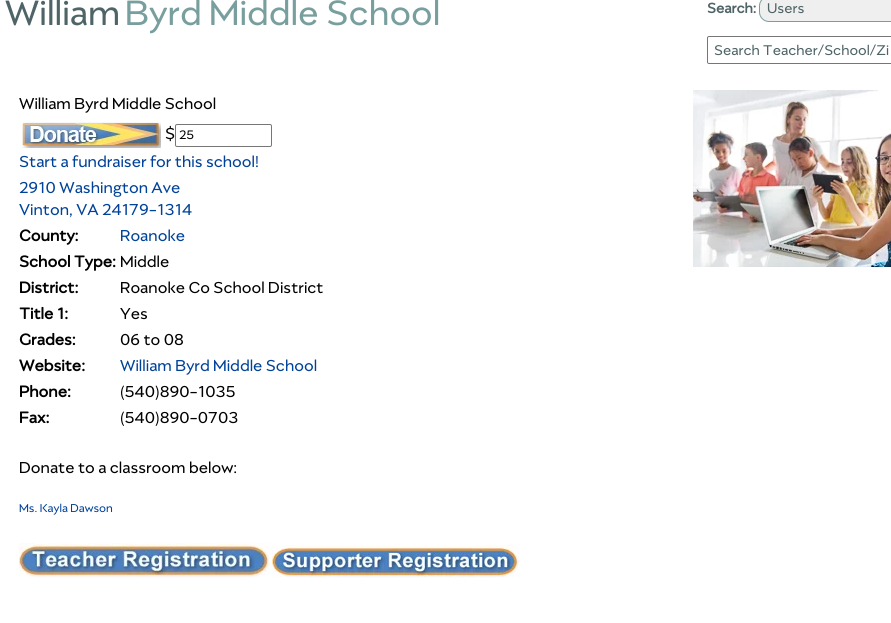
#include <cairo/cairo.h>
#include <math.h>
#include <stddef.h>

static cairo_t *cr;

static void use_color(int r, int g, int b) {
  cairo_set_source_rgb(cr, r / 255.0, g / 255.0, b / 255.0);
}

static void text(double x, double y, const char *s, const char *family, double size, int italic, int bold, int r, int g, int b) {
  cairo_select_font_face(cr, family, italic ? CAIRO_FONT_SLANT_ITALIC : CAIRO_FONT_SLANT_NORMAL,
    bold ? CAIRO_FONT_WEIGHT_BOLD : CAIRO_FONT_WEIGHT_NORMAL);
  cairo_set_font_size(cr, size);
  use_color(r, g, b);
  cairo_move_to(cr, x, y);
  cairo_show_text(cr, s);
}

static void round_rect(double x, double y, double w, double h, double r) {
  cairo_new_sub_path(cr);
  cairo_arc(cr, x + w - r, y + h - r, r, 0, M_PI / 2);
  cairo_arc(cr, x + r, y + h - r, r, M_PI / 2, M_PI);
  cairo_arc(cr, x + r, y + r, r, M_PI, 1.5 * M_PI);
  cairo_arc(cr, x + w - r, y + r, r, 1.5 * M_PI, 2 * M_PI);
  cairo_close_path(cr);
}

static void picture(const char *path, double x, double y, double w, double h) {
  cairo_surface_t *image = cairo_image_surface_create_from_png(path);
  cairo_save(cr);
  cairo_set_source_surface(cr, image, x, y);
  cairo_rectangle(cr, x, y, w, h);
  cairo_fill(cr);
  cairo_restore(cr);
  cairo_surface_destroy(image);
}

static void draw(void) {
  use_color(255, 255, 255);
  cairo_paint(cr);
  use_color(239, 239, 239);
  round_rect(759.5, -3.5, 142, 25, 9.5);
  cairo_fill_preserve(cr);
  use_color(120, 159, 158);
  cairo_set_line_width(cr, 1);
  cairo_stroke(cr);
  round_rect(707.5, 36.5, 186, 27, 1.5);
  use_color(118, 118, 118);
  cairo_stroke(cr);
  picture("img_01.png", 22, 122, 139, 26);
  round_rect(175.5, 124.5, 96, 22, 1.5);
  cairo_stroke(cr);
  picture("img_02.png", 19, 543, 251, 35);
  picture("img_03.png", 272, 545, 248, 33);
  picture("img_04.png", 693, 90, 198, 177);
  text(5, 25, "William", "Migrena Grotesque", 40, 0, 0, 79, 100, 103);
  text(125, 25, "Byrd Middle School", "Migrena Grotesque", 40, 0, 0, 120, 159, 158);
  text(707, 13, "Search:", "Migrena Grotesque", 16, 0, 1, 79, 100, 103);
  text(767, 13, "Users", "Migrena Grotesque", 16, 0, 0, 79, 100, 103);
  text(714, 55, "Search Teacher/School/Zi", "Migrena Grotesque", 16, 0, 0, 79, 100, 103);
  text(19, 109, "William Byrd Middle School", "Migrena Grotesque", 18, 0, 0, 0, 0, 0);
  text(165, 139, "$", "Migrena Grotesque", 18, 0, 0, 0, 0, 0);
  text(179, 139, "25", "Migrena Grotesque", 14, 0, 0, 0, 0, 0);
  text(19, 167, "Start a fundraiser for this school!", "Migrena Grotesque", 18, 0, 0, 0, 66, 152);
  text(19, 193, "2910 Washington Ave", "Migrena Grotesque", 18, 0, 0, 0, 66, 152);
  text(19, 215, "Vinton, VA 24179-1314", "Migrena Grotesque", 18, 0, 0, 0, 66, 152);
  text(19, 241, "County:", "Migrena Grotesque", 18, 0, 1, 0, 0, 0);
  text(120, 241, "Roanoke", "Migrena Grotesque", 18, 0, 0, 0, 66, 152);
  text(19, 267, "School Type:", "Migrena Grotesque", 18, 0, 1, 0, 0, 0);
  text(120, 267, "Middle", "Migrena Grotesque", 18, 0, 0, 0, 0, 0);
  text(19, 293, "District:", "Migrena Grotesque", 18, 0, 1, 0, 0, 0);
  text(120, 293, "Roanoke Co School District", "Migrena Grotesque", 18, 0, 0, 0, 0, 0);
  text(19, 319, "Title 1:", "Migrena Grotesque", 18, 0, 1, 0, 0, 0);
  text(120, 319, "Yes", "Migrena Grotesque", 18, 0, 0, 0, 0, 0);
  text(19, 345, "Grades:", "Migrena Grotesque", 18, 0, 1, 0, 0, 0);
  text(120, 345, "06 to 08", "Migrena Grotesque", 18, 0, 0, 0, 0, 0);
  text(19, 371, "Website:", "Migrena Grotesque", 18, 0, 1, 0, 0, 0);
  text(120, 371, "William Byrd Middle School", "Migrena Grotesque", 18, 0, 0, 0, 66, 152);
  text(19, 397, "Phone:", "Migrena Grotesque", 18, 0, 1, 0, 0, 0);
  text(120, 397, "(540)890-1035", "Migrena Grotesque", 18, 0, 0, 0, 0, 0);
  text(19, 423, "Fax:", "Migrena Grotesque", 18, 0, 1, 0, 0, 0);
  text(120, 423, "(540)890-0703", "Migrena Grotesque", 18, 0, 0, 0, 0, 0);
  text(19, 473, "Donate to a classroom below:", "Migrena Grotesque", 18, 0, 0, 0, 0, 0);
  text(19, 512, "Ms. Kayla Dawson", "Migrena Grotesque", 13, 0, 0, 0, 66, 152);
}

int main(void) {
  cairo_surface_t *surface = cairo_image_surface_create(CAIRO_FORMAT_RGB24, 891, 623);
  cr = cairo_create(surface);
  cairo_font_options_t *options = cairo_font_options_create();
  cairo_font_options_set_hint_metrics(options, CAIRO_HINT_METRICS_OFF);
  cairo_font_options_set_hint_style(options, CAIRO_HINT_STYLE_NONE);
  cairo_set_font_options(cr, options);
  cairo_set_miter_limit(cr, 4);
  draw();
  cairo_surface_write_to_png(surface, "out.png");
  cairo_font_options_destroy(options);
  cairo_destroy(cr);
  cairo_surface_destroy(surface);
  return 0;
}
